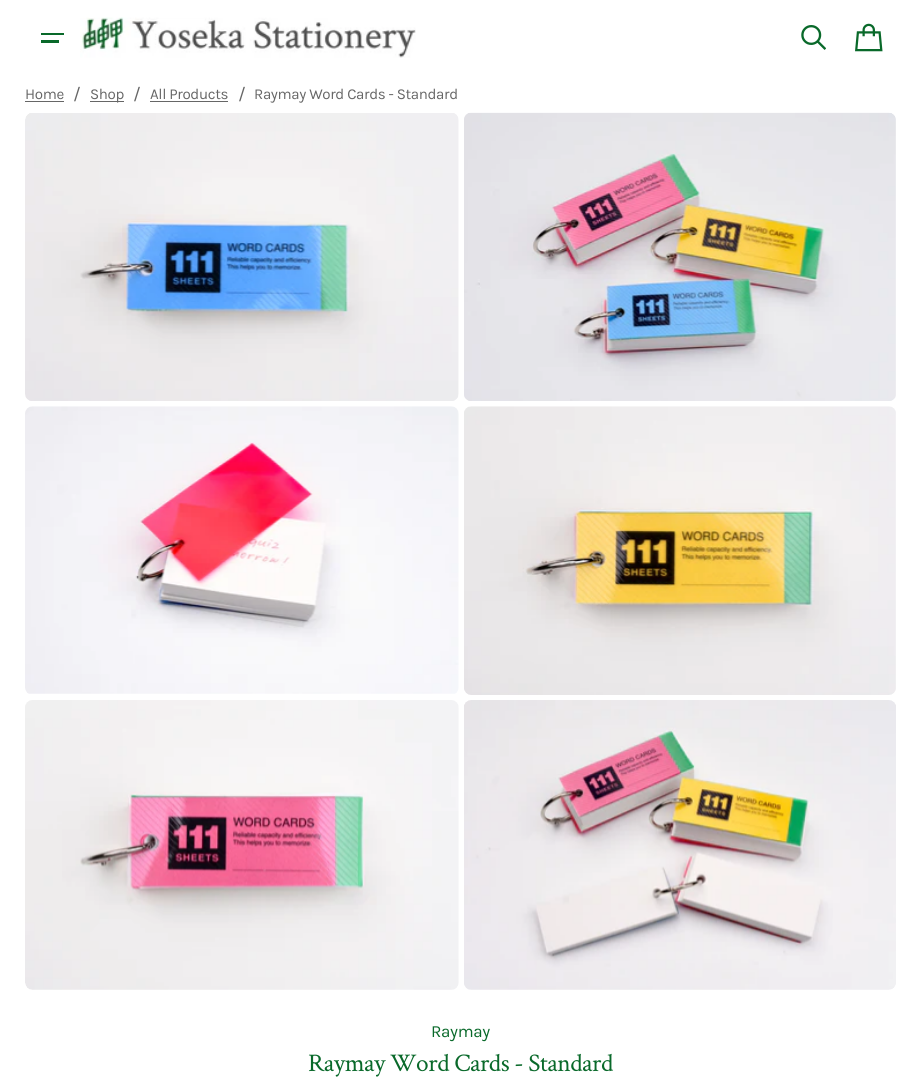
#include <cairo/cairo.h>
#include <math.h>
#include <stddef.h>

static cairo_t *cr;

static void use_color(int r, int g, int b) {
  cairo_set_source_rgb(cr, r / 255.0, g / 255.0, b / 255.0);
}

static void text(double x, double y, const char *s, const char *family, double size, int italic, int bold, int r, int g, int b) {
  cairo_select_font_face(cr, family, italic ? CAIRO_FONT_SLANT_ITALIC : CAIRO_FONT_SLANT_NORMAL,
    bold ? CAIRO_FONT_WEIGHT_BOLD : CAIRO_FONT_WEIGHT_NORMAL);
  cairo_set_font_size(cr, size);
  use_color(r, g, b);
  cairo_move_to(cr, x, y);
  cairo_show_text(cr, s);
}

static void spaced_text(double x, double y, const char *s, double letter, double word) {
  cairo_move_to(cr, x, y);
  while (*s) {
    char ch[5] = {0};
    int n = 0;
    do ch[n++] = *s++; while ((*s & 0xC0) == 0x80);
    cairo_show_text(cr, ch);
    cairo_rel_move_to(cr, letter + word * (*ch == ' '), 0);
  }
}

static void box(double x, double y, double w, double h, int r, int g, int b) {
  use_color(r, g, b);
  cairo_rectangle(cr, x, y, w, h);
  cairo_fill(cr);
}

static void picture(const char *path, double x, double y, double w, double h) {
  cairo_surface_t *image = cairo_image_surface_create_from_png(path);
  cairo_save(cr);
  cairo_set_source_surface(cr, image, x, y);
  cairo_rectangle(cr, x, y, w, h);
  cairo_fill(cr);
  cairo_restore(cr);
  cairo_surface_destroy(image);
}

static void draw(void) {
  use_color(255, 255, 255);
  cairo_paint(cr);
  box(41, 33, 23, 2, 9, 105, 42);
  box(41, 40, 18, 3, 9, 105, 42);
  picture("img_01.png", 80, 17, 336, 41);
  picture("img_02.png", 801, 25, 25, 25);
  picture("img_03.png", 855, 23, 28, 29);
  box(25, 101, 39, 1, 102, 102, 102);
  box(90, 101, 34, 1, 102, 102, 102);
  box(150, 101, 78, 1, 102, 102, 102);
  picture("img_04.png", 25, 113, 434, 288);
  picture("img_05.png", 464, 112, 432, 289);
  picture("img_06.png", 25, 406, 434, 288);
  picture("img_07.png", 464, 406, 432, 289);
  picture("img_08.png", 25, 700, 434, 290);
  picture("img_09.png", 464, 700, 432, 290);
  cairo_select_font_face(cr, "Karla", CAIRO_FONT_SLANT_NORMAL, CAIRO_FONT_WEIGHT_NORMAL);
  cairo_set_font_size(cr, 15.1);
  spaced_text(25, 99, "Home", -0.35, 0);
  text(73, 100, "/", "Karla", 18, 0, 0, 102, 102, 102);
  cairo_set_font_size(cr, 15.1);
  spaced_text(90, 99, "Shop", -0.35, 0);
  text(133, 100, "/", "Karla", 18, 0, 0, 102, 102, 102);
  cairo_set_font_size(cr, 15.1);
  spaced_text(150, 99, "All Products", -0.35, 0);
  text(238, 100, "/", "Karla", 18, 0, 0, 102, 102, 102);
  cairo_set_font_size(cr, 15.1);
  spaced_text(254, 99, "Raymay Word Cards - Standard", -0.35, 0);
  cairo_set_font_size(cr, 17);
  use_color(9, 105, 42);
  spaced_text(431, 1037, "Raymay", -0.35, 0);
  cairo_select_font_face(cr, "Crimson Text", CAIRO_FONT_SLANT_NORMAL, CAIRO_FONT_WEIGHT_NORMAL);
  cairo_set_font_size(cr, 25.4);
  spaced_text(308, 1071, "Raymay Word Cards - Standard", -0.5, 0);
}

int main(void) {
  cairo_surface_t *surface = cairo_image_surface_create(CAIRO_FORMAT_RGB24, 921, 1077);
  cr = cairo_create(surface);
  cairo_font_options_t *options = cairo_font_options_create();
  cairo_font_options_set_hint_metrics(options, CAIRO_HINT_METRICS_OFF);
  cairo_font_options_set_hint_style(options, CAIRO_HINT_STYLE_NONE);
  cairo_set_font_options(cr, options);
  cairo_set_miter_limit(cr, 4);
  draw();
  cairo_surface_write_to_png(surface, "out.png");
  cairo_font_options_destroy(options);
  cairo_destroy(cr);
  cairo_surface_destroy(surface);
  return 0;
}
